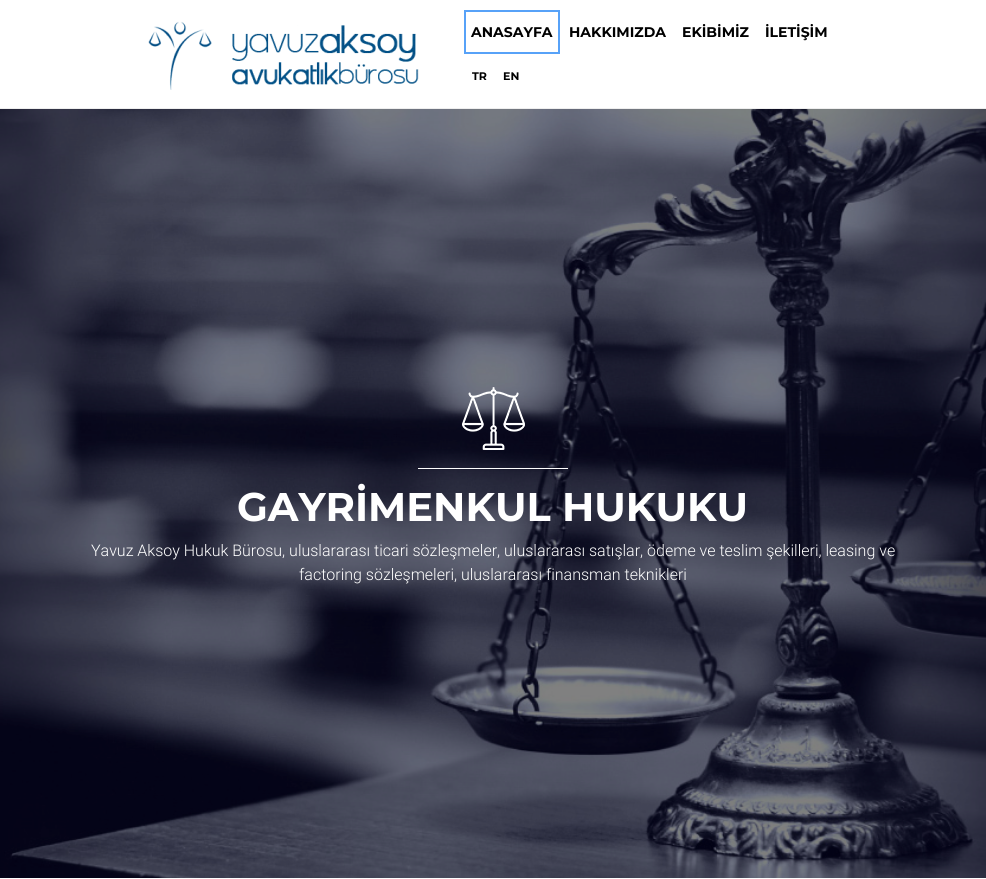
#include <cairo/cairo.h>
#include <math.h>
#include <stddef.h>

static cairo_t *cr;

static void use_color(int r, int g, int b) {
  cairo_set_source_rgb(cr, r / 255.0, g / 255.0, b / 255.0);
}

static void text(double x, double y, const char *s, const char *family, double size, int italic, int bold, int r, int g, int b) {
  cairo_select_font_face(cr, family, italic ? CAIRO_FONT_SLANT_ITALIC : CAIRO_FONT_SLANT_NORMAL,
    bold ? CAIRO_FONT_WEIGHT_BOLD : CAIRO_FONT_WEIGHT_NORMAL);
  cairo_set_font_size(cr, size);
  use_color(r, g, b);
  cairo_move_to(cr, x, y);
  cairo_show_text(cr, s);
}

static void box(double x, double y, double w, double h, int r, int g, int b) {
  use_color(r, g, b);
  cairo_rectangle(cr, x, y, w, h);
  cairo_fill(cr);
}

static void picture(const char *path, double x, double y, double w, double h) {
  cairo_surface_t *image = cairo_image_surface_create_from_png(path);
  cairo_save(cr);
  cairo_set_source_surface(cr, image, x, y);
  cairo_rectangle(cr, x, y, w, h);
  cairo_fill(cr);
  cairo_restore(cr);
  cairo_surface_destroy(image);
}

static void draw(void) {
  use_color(255, 255, 255);
  cairo_paint(cr);
  box(0, 108, 986, 1, 238, 238, 238);
  picture("img_01.png", 148, 21, 271, 69);
  cairo_rectangle(cr, 465, 11, 94, 42);
  use_color(87, 162, 248);
  cairo_stroke(cr);
  picture("img_02.png", 0, 109, 986, 769);
  picture("img_03.png", 462, 387, 63, 63);
  box(418, 468, 150, 1, 255, 255, 255);
  text(471, 37, "ANASAYFA", "Montserrat", 14, 0, 1, 0, 0, 0);
  text(569, 37, "HAKKIMIZDA", "Montserrat", 14, 0, 1, 0, 0, 0);
  text(682, 37, "EKİBİMİZ", "Montserrat", 14, 0, 1, 0, 0, 0);
  text(765, 37, "İLETİŞİM", "Montserrat", 14, 0, 1, 0, 0, 0);
  text(472, 80, "TR", "Montserrat", 11, 0, 1, 0, 0, 0);
  text(503, 80, "EN", "Montserrat", 11, 0, 1, 0, 0, 0);
  text(237, 521, "GAYRİMENKUL HUKUKU", "Montserrat", 40, 0, 1, 255, 255, 255);
  text(91, 556, "Yavuz Aksoy Hukuk Bürosu, uluslararası ticari sözleşmeler, uluslararası satışlar, ödeme ve teslim şekilleri, leasing ve", "Roboto Light", 16, 0, 0, 255, 255, 255);
  text(299, 580, "factoring sözleşmeleri, uluslararası finansman teknikleri", "Roboto Light", 16, 0, 0, 255, 255, 255);
}

int main(void) {
  cairo_surface_t *surface = cairo_image_surface_create(CAIRO_FORMAT_RGB24, 986, 879);
  cr = cairo_create(surface);
  cairo_font_options_t *options = cairo_font_options_create();
  cairo_font_options_set_hint_metrics(options, CAIRO_HINT_METRICS_OFF);
  cairo_font_options_set_hint_style(options, CAIRO_HINT_STYLE_NONE);
  cairo_set_font_options(cr, options);
  cairo_set_miter_limit(cr, 4);
  draw();
  cairo_surface_write_to_png(surface, "out.png");
  cairo_font_options_destroy(options);
  cairo_destroy(cr);
  cairo_surface_destroy(surface);
  return 0;
}
